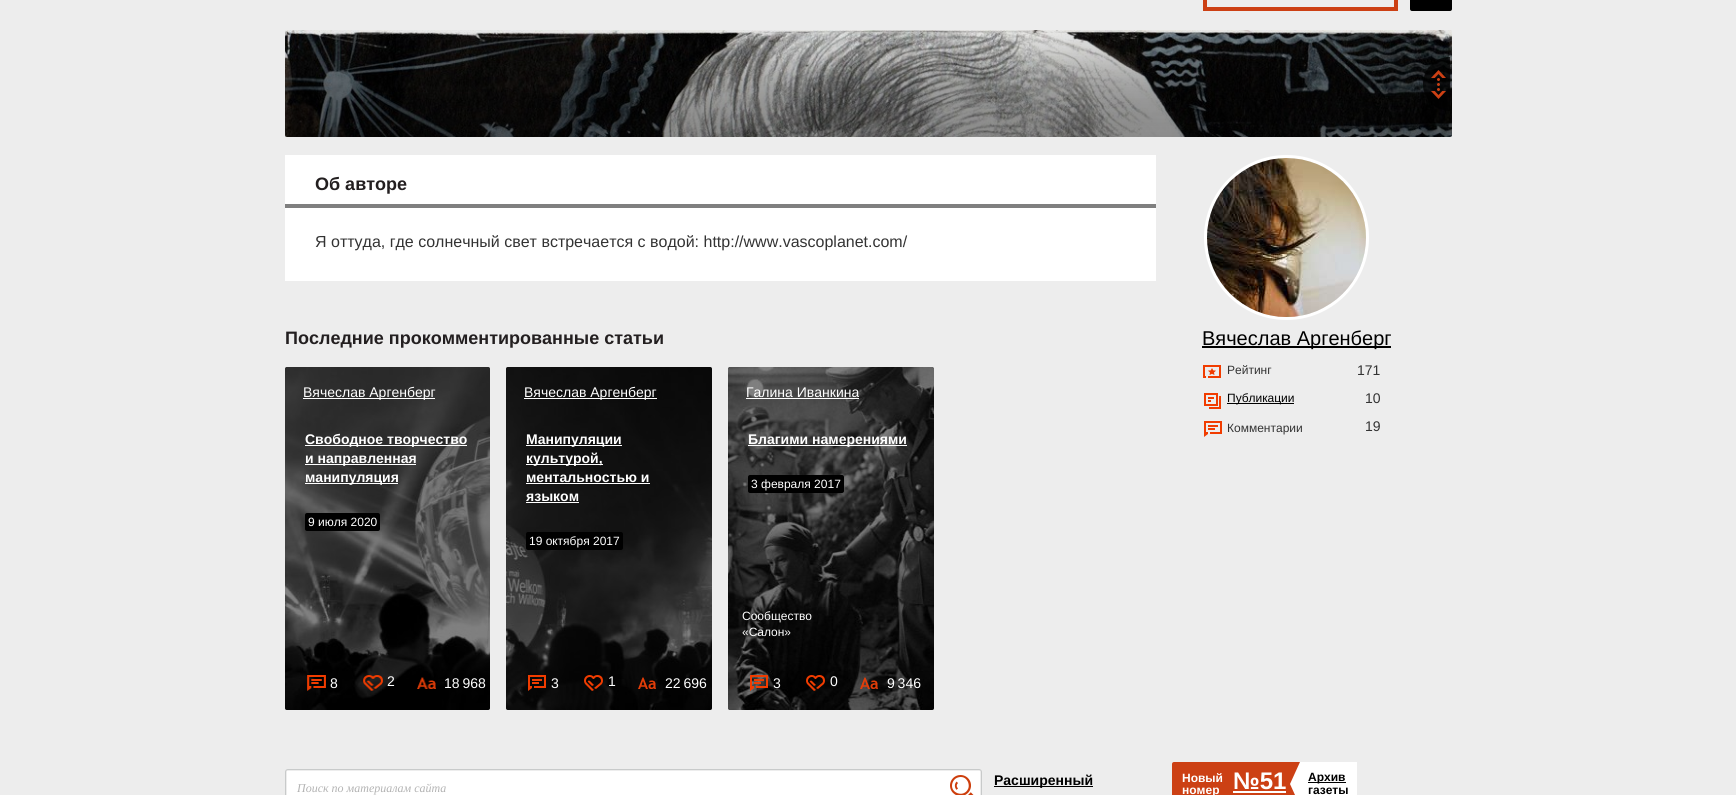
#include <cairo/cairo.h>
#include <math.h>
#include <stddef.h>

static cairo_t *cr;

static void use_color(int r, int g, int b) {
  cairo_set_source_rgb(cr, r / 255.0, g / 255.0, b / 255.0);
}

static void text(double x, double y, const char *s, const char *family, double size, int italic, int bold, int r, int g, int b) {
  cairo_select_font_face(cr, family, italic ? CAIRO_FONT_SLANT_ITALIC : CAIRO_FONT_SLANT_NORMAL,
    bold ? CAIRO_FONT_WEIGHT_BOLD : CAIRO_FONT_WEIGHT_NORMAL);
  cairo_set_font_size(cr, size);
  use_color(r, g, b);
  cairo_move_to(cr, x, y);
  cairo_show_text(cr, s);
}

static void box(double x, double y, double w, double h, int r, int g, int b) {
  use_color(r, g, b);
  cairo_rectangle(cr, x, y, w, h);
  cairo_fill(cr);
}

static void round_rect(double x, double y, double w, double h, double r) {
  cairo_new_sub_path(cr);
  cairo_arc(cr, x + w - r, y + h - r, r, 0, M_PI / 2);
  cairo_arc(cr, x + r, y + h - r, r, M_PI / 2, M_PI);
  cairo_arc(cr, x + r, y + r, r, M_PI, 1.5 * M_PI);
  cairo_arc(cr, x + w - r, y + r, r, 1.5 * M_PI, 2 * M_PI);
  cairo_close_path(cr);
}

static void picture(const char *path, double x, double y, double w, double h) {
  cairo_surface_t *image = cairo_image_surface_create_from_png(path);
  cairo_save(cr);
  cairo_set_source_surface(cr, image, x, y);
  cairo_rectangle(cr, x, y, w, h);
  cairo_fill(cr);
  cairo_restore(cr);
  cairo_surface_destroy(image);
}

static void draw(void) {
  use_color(237, 237, 237);
  cairo_paint(cr);
  cairo_rectangle(cr, 1205, -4, 191, 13);
  use_color(204, 64, 20);
  cairo_set_line_width(cr, 4);
  cairo_stroke(cr);
  use_color(0, 0, 0);
  round_rect(1410, -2, 42, 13, 2);
  cairo_fill(cr);
  picture("img_01.png", 285, 30, 1167, 107);
  picture("img_02.png", 285, 30, 1167, 107);
  picture("img_03.png", 1423, 57, 27, 54);
  box(285, 155, 871, 49, 255, 255, 255);
  box(285, 204, 871, 4, 127, 127, 127);
  box(285, 208, 871, 73, 255, 255, 255);
  use_color(0, 0, 0);
  round_rect(285, 367, 205, 343, 2);
  cairo_fill(cr);
  picture("img_04.png", 285, 367, 205, 343);
  box(303, 398, 132, 1, 255, 255, 255);
  box(305, 445, 162, 1, 255, 255, 255);
  box(305, 464, 111, 1, 255, 255, 255);
  box(305, 483, 93, 1, 255, 255, 255);
  use_color(0, 0, 0);
  round_rect(305, 513, 75, 18, 2);
  cairo_fill(cr);
  picture("img_05.png", 307, 675, 19, 16);
  picture("img_06.png", 363, 675, 20, 16);
  picture("img_07.png", 417, 677, 19, 12);
  round_rect(506, 367, 206, 343, 2);
  cairo_fill(cr);
  picture("img_08.png", 506, 367, 206, 343);
  box(524, 398, 133, 1, 255, 255, 255);
  box(526, 445, 96, 1, 255, 255, 255);
  box(526, 464, 77, 1, 255, 255, 255);
  box(526, 483, 124, 1, 255, 255, 255);
  box(526, 502, 53, 1, 255, 255, 255);
  use_color(0, 0, 0);
  round_rect(526, 532, 97, 18, 2);
  cairo_fill(cr);
  picture("img_09.png", 528, 675, 18, 16);
  picture("img_10.png", 584, 675, 19, 16);
  picture("img_11.png", 638, 677, 18, 12);
  round_rect(728, 367, 206, 343, 2);
  cairo_fill(cr);
  picture("img_12.png", 728, 367, 206, 343);
  box(746, 398, 113, 1, 255, 255, 255);
  box(748, 445, 159, 1, 255, 255, 255);
  use_color(0, 0, 0);
  round_rect(748, 475, 96, 18, 2);
  cairo_fill(cr);
  picture("img_13.png", 750, 675, 18, 16);
  picture("img_14.png", 806, 675, 19, 16);
  picture("img_15.png", 860, 677, 18, 12);
  use_color(242, 242, 242);
  cairo_arc(cr, 1286.5, 237.5, 81, 0, 2 * M_PI);
  cairo_fill_preserve(cr);
  use_color(255, 255, 255);
  cairo_set_line_width(cr, 3);
  cairo_stroke(cr);
  picture("img_16.png", 1207, 158, 159, 159);
  box(1202, 346, 189, 2, 0, 0, 0);
  picture("img_17.png", 1203, 365, 18, 13);
  picture("img_18.png", 1204, 393, 17, 16);
  box(1227, 403, 67, 1, 0, 0, 0);
  picture("img_19.png", 1204, 421, 18, 16);
  round_rect(285.5, 769.5, 696, 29, 2.5);
  use_color(200, 202, 202);
  cairo_set_line_width(cr, 1);
  cairo_stroke(cr);
  box(287, 771, 693, 24, 255, 255, 255);
  picture("img_20.png", 950, 775, 24, 20);
  box(994, 786, 99, 1, 0, 0, 0);
  use_color(204, 64, 20);
  round_rect(1172, 762, 185, 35, 2);
  cairo_fill(cr);
  box(1233, 791, 53, 2, 255, 255, 255);
  box(1300, 762, 57, 33, 255, 255, 255);
  cairo_new_path(cr);
  cairo_move_to(cr, 1300, 762);
  cairo_line_to(cr, 1300, 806);
  cairo_line_to(cr, 1290, 784);
  cairo_close_path(cr);
  cairo_fill(cr);
  box(1308, 782, 38, 1, 0, 0, 0);
  text(315, 190, "Об авторе", "Liberation Sans", 18, 0, 1, 35, 31, 32);
  text(315, 247, "Я оттуда, где солнечный свет встречается с водой: http://www.vascoplanet.com/", "Liberation Sans", 16, 0, 0, 51, 51, 51);
  text(285, 344, "Последние прокомментированные статьи", "Liberation Sans", 18, 0, 1, 35, 31, 32);
  text(303, 397, "Вячеслав Аргенберг", "Liberation Sans", 14, 0, 0, 255, 255, 255);
  text(305, 444, "Свободное творчество", "Liberation Sans", 14, 0, 1, 255, 255, 255);
  text(305, 463, "и направленная", "Liberation Sans", 14, 0, 1, 255, 255, 255);
  text(305, 482, "манипуляция", "Liberation Sans", 14, 0, 1, 255, 255, 255);
  text(308, 526, "9 июля 2020", "Liberation Sans", 12, 0, 0, 255, 255, 255);
  text(330, 688, "8", "Liberation Sans", 14, 0, 0, 255, 255, 255);
  text(387, 686, "2", "Liberation Sans", 14, 0, 0, 255, 255, 255);
  text(444, 688, "18 968", "Liberation Sans", 14, 0, 0, 255, 255, 255);
  text(524, 397, "Вячеслав Аргенберг", "Liberation Sans", 14, 0, 0, 255, 255, 255);
  text(526, 444, "Манипуляции", "Liberation Sans", 14, 0, 1, 255, 255, 255);
  text(526, 463, "культурой,", "Liberation Sans", 14, 0, 1, 255, 255, 255);
  text(526, 482, "ментальностью и", "Liberation Sans", 14, 0, 1, 255, 255, 255);
  text(526, 501, "языком", "Liberation Sans", 14, 0, 1, 255, 255, 255);
  text(529, 545, "19 октября 2017", "Liberation Sans", 12, 0, 0, 255, 255, 255);
  text(551, 688, "3", "Liberation Sans", 14, 0, 0, 255, 255, 255);
  text(608, 686, "1", "Liberation Sans", 14, 0, 0, 255, 255, 255);
  text(665, 688, "22 696", "Liberation Sans", 14, 0, 0, 255, 255, 255);
  text(746, 397, "Галина Иванкина", "Liberation Sans", 14, 0, 0, 255, 255, 255);
  text(748, 444, "Благими намерениями", "Liberation Sans", 14, 0, 1, 255, 255, 255);
  text(751, 488, "3 февраля 2017", "Liberation Sans", 12, 0, 0, 255, 255, 255);
  text(742, 620, "Cообщество", "Liberation Sans", 12, 0, 0, 255, 255, 255);
  text(742, 636, "«Салон»", "Liberation Sans", 12, 0, 0, 255, 255, 255);
  text(773, 688, "3", "Liberation Sans", 14, 0, 0, 255, 255, 255);
  text(830, 686, "0", "Liberation Sans", 14, 0, 0, 255, 255, 255);
  text(887, 688, "9 346", "Liberation Sans", 14, 0, 0, 255, 255, 255);
  text(1202, 345, "Вячеслав Аргенберг", "Liberation Sans", 20, 0, 0, 0, 0, 0);
  text(1227, 374, "Рейтинг", "Liberation Sans", 12, 0, 0, 51, 51, 51);
  text(1357, 375, "171", "Liberation Sans", 14, 0, 0, 51, 51, 51);
  text(1227, 402, "Публикации", "Liberation Sans", 12, 0, 0, 0, 0, 0);
  text(1365, 403, "10", "Liberation Sans", 14, 0, 0, 51, 51, 51);
  text(1227, 432, "Комментарии", "Liberation Sans", 12, 0, 0, 51, 51, 51);
  text(1365, 431, "19", "Liberation Sans", 14, 0, 0, 51, 51, 51);
  text(297, 792, "Поиск по материалам сайта", "Liberation Serif", 12, 1, 0, 179, 179, 179);
  text(994, 785, "Расширенный", "Liberation Sans", 14, 0, 1, 0, 0, 0);
  text(1182, 782, "Новый", "Liberation Sans", 12, 0, 1, 255, 255, 255);
  text(1182, 794, "номер", "Liberation Sans", 12, 0, 1, 255, 255, 255);
  text(1233, 789, "№51", "Liberation Sans", 24, 0, 1, 255, 255, 255);
  text(1308, 781, "Архив", "Liberation Sans", 12, 0, 1, 0, 0, 0);
  text(1308, 794, "газеты", "Liberation Sans", 12, 0, 1, 0, 0, 0);
}

int main(void) {
  cairo_surface_t *surface = cairo_image_surface_create(CAIRO_FORMAT_RGB24, 1736, 795);
  cr = cairo_create(surface);
  cairo_font_options_t *options = cairo_font_options_create();
  cairo_font_options_set_hint_metrics(options, CAIRO_HINT_METRICS_OFF);
  cairo_font_options_set_hint_style(options, CAIRO_HINT_STYLE_NONE);
  cairo_set_font_options(cr, options);
  cairo_set_miter_limit(cr, 4);
  draw();
  cairo_surface_write_to_png(surface, "out.png");
  cairo_font_options_destroy(options);
  cairo_destroy(cr);
  cairo_surface_destroy(surface);
  return 0;
}
